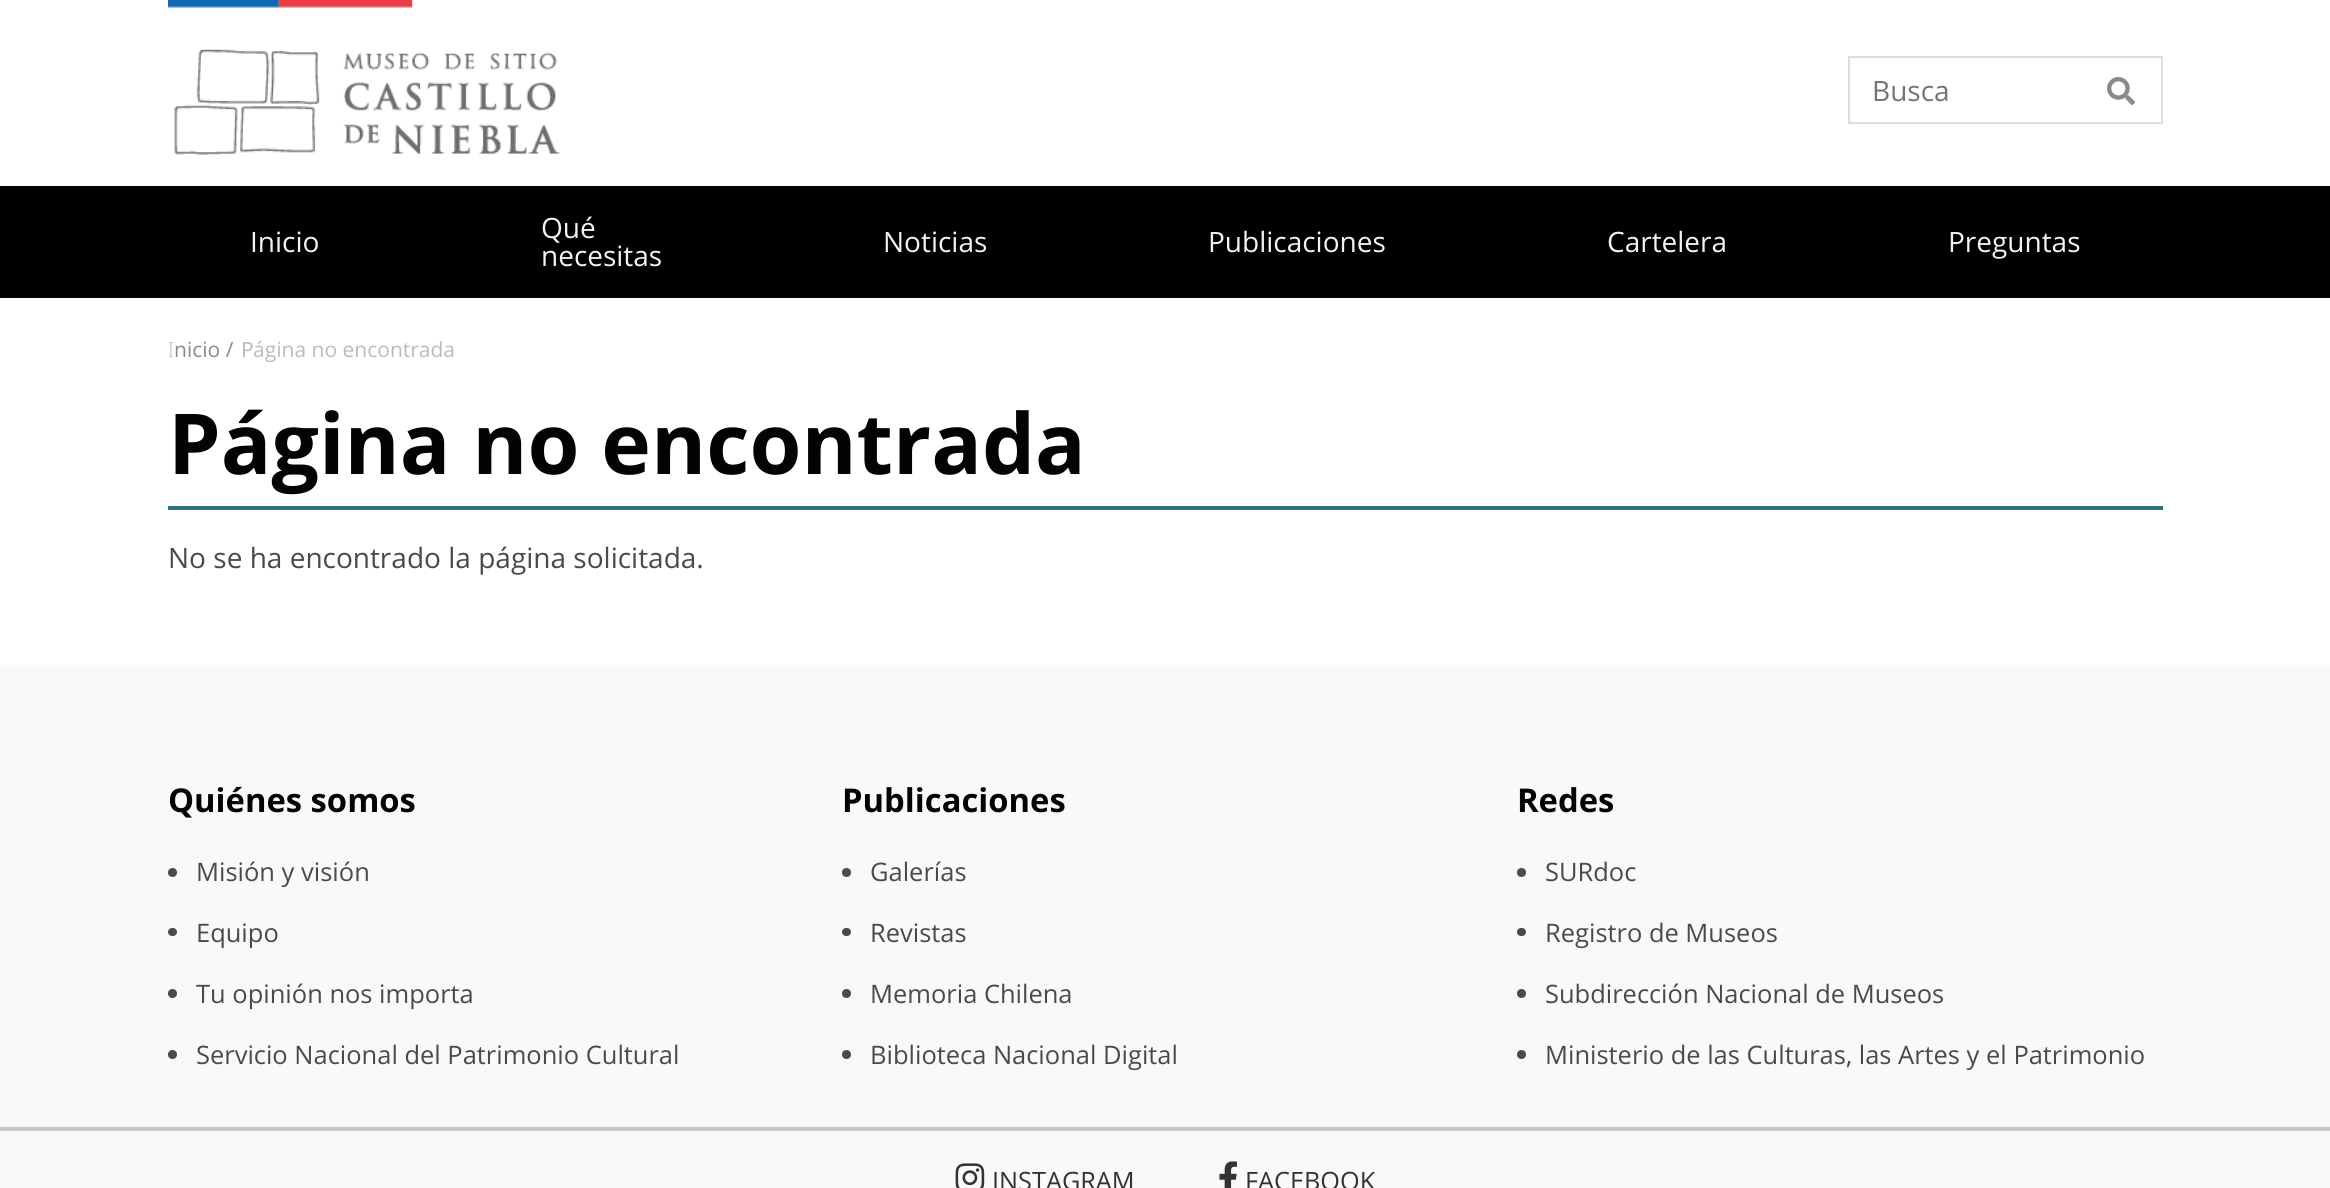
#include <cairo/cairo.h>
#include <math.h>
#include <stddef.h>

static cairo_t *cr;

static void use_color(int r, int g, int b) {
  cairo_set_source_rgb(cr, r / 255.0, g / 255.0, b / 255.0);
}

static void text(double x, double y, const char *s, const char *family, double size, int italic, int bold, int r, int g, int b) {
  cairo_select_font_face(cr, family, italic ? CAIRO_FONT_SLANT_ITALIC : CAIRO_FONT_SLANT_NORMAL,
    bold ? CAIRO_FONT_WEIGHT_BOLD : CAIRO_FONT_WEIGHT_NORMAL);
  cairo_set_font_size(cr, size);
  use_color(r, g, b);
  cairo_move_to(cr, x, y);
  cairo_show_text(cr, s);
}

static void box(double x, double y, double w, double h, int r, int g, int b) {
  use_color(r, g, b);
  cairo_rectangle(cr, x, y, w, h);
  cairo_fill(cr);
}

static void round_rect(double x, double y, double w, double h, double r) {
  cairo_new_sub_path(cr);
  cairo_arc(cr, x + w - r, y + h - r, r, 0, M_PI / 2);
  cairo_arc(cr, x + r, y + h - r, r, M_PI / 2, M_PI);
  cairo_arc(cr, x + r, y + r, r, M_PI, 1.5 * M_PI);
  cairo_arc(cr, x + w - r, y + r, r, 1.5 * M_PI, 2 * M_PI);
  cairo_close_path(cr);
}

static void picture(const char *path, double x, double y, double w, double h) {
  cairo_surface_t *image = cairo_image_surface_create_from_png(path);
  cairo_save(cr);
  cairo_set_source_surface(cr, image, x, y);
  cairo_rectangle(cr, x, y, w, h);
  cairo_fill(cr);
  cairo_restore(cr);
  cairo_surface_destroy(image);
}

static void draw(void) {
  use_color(255, 255, 255);
  cairo_paint(cr);
  picture("img_01.png", 168, 0, 392, 156);
  cairo_rectangle(cr, 1849, 57, 313, 66);
  use_color(222, 222, 222);
  cairo_stroke(cr);
  picture("img_02.png", 2107, 77, 28, 28);
  box(0, 186, 2330, 112, 0, 0, 0);
  box(168, 506, 1995, 4, 45, 113, 124);
  box(0, 665, 2330, 523, 249, 249, 249);
  use_color(74, 74, 74);
  cairo_arc(cr, 172.5, 872.5, 4.5, 0, 2 * M_PI);
  cairo_fill(cr);
  round_rect(168, 928, 9, 8, 4);
  cairo_fill(cr);
  cairo_arc(cr, 172.5, 993.5, 4.5, 0, 2 * M_PI);
  cairo_fill(cr);
  cairo_arc(cr, 172.5, 1054.5, 4.5, 0, 2 * M_PI);
  cairo_fill(cr);
  cairo_arc(cr, 846.5, 872.5, 4.5, 0, 2 * M_PI);
  cairo_fill(cr);
  round_rect(842, 928, 9, 8, 4);
  cairo_fill(cr);
  cairo_arc(cr, 846.5, 993.5, 4.5, 0, 2 * M_PI);
  cairo_fill(cr);
  cairo_arc(cr, 846.5, 1054.5, 4.5, 0, 2 * M_PI);
  cairo_fill(cr);
  cairo_arc(cr, 1521.5, 872.5, 4.5, 0, 2 * M_PI);
  cairo_fill(cr);
  round_rect(1517, 928, 9, 8, 4);
  cairo_fill(cr);
  cairo_arc(cr, 1521.5, 993.5, 4.5, 0, 2 * M_PI);
  cairo_fill(cr);
  cairo_arc(cr, 1521.5, 1054.5, 4.5, 0, 2 * M_PI);
  cairo_fill(cr);
  box(0, 1127, 2330, 4, 200, 200, 200);
  picture("img_03.png", 955, 1163, 30, 25);
  picture("img_04.png", 1219, 1161, 18, 27);
  text(1872, 101, "Busca", "Open Sans", 28, 0, 0, 117, 117, 117);
  text(250, 252, "Inicio", "Open Sans", 28, 0, 0, 243, 243, 243);
  text(541, 238, "Qué", "Open Sans", 28, 0, 0, 243, 243, 243);
  text(541, 266, "necesitas", "Open Sans", 28, 0, 0, 243, 243, 243);
  text(883, 252, "Noticias", "Open Sans", 28, 0, 0, 243, 243, 243);
  text(1208, 252, "Publicaciones", "Open Sans", 28, 0, 0, 243, 243, 243);
  text(1607, 252, "Cartelera", "Open Sans", 28, 0, 0, 243, 243, 243);
  text(1948, 252, "Preguntas", "Open Sans", 28, 0, 0, 243, 243, 243);
  text(168, 357, "I", "Noto Sans Thin", 21, 0, 0, 138, 138, 138);
  text(174, 357, "nicio /", "Open Sans", 21, 0, 0, 138, 138, 138);
  text(241, 357, "P", "Noto Sans", 21, 0, 0, 187, 187, 187);
  text(253, 357, "ágina no encontrada", "Open Sans", 21, 0, 0, 187, 187, 187);
  text(168, 474, "Página no encontrada", "Open Sans", 84, 0, 1, 3, 3, 3);
  text(168, 568, "No se ha encontrado la página solicitada.", "Open Sans", 28, 0, 0, 74, 74, 74);
  text(168, 812, "Quiénes somos", "Open Sans", 32.75, 0, 1, 3, 3, 3);
  text(196, 881, "Misión y visión", "Open Sans", 25.45, 0, 0, 74, 74, 74);
  text(196, 942, "Equipo", "Open Sans", 25.45, 0, 0, 74, 74, 74);
  text(196, 1003, "Tu opinión nos importa", "Open Sans", 25.45, 0, 0, 74, 74, 74);
  text(196, 1064, "Servicio Nacional del Patrimonio Cultural", "Open Sans", 25.45, 0, 0, 74, 74, 74);
  text(842, 812, "Publicaciones", "Open Sans", 32.75, 0, 1, 3, 3, 3);
  text(870, 881, "Galerías", "Open Sans", 25.45, 0, 0, 74, 74, 74);
  text(870, 942, "Revistas", "Open Sans", 25.45, 0, 0, 74, 74, 74);
  text(870, 1003, "Memoria Chilena", "Open Sans", 25.45, 0, 0, 74, 74, 74);
  text(870, 1064, "Biblioteca Nacional Digital", "Open Sans", 25.45, 0, 0, 74, 74, 74);
  text(1517, 812, "Redes", "Open Sans", 32.75, 0, 1, 3, 3, 3);
  text(1545, 881, "SURdoc", "Open Sans", 25.45, 0, 0, 74, 74, 74);
  text(1545, 942, "Registro de Museos", "Open Sans", 25.45, 0, 0, 74, 74, 74);
  text(1545, 1003, "Subdirección Nacional de Museos", "Open Sans", 25.45, 0, 0, 74, 74, 74);
  text(1545, 1064, "Ministerio de las Culturas, las Artes y el Patrimonio", "Open Sans", 25.45, 0, 0, 74, 74, 74);
  text(992, 1190, "INSTAGRAM", "Open Sans", 25.25, 0, 0, 51, 51, 51);
  text(1245, 1190, "FACEBOOK", "Open Sans", 25.25, 0, 0, 51, 51, 51);
}

int main(void) {
  cairo_surface_t *surface = cairo_image_surface_create(CAIRO_FORMAT_RGB24, 2330, 1188);
  cr = cairo_create(surface);
  cairo_font_options_t *options = cairo_font_options_create();
  cairo_font_options_set_hint_metrics(options, CAIRO_HINT_METRICS_OFF);
  cairo_font_options_set_hint_style(options, CAIRO_HINT_STYLE_NONE);
  cairo_set_font_options(cr, options);
  cairo_set_miter_limit(cr, 4);
  draw();
  cairo_surface_write_to_png(surface, "out.png");
  cairo_font_options_destroy(options);
  cairo_destroy(cr);
  cairo_surface_destroy(surface);
  return 0;
}
